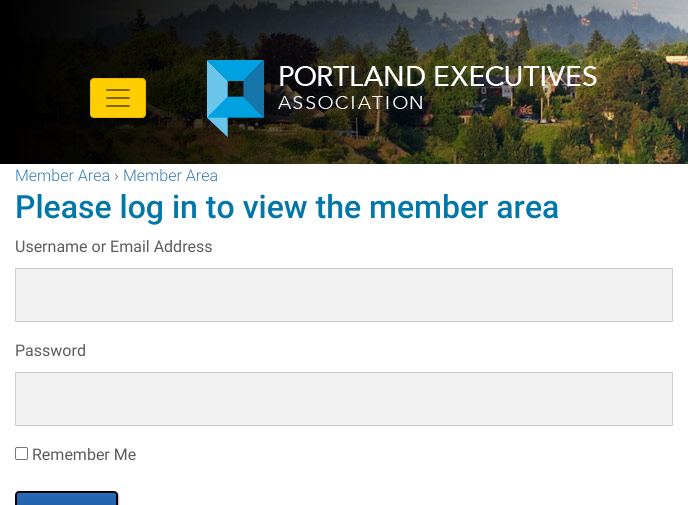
#include <cairo/cairo.h>
#include <math.h>
#include <stddef.h>

static cairo_t *cr;

static void use_color(int r, int g, int b) {
  cairo_set_source_rgb(cr, r / 255.0, g / 255.0, b / 255.0);
}

static void text(double x, double y, const char *s, const char *family, double size, int italic, int bold, int r, int g, int b) {
  cairo_select_font_face(cr, family, italic ? CAIRO_FONT_SLANT_ITALIC : CAIRO_FONT_SLANT_NORMAL,
    bold ? CAIRO_FONT_WEIGHT_BOLD : CAIRO_FONT_WEIGHT_NORMAL);
  cairo_set_font_size(cr, size);
  use_color(r, g, b);
  cairo_move_to(cr, x, y);
  cairo_show_text(cr, s);
}

static void round_rect(double x, double y, double w, double h, double r) {
  cairo_new_sub_path(cr);
  cairo_arc(cr, x + w - r, y + h - r, r, 0, M_PI / 2);
  cairo_arc(cr, x + r, y + h - r, r, M_PI / 2, M_PI);
  cairo_arc(cr, x + r, y + r, r, M_PI, 1.5 * M_PI);
  cairo_arc(cr, x + w - r, y + r, r, 1.5 * M_PI, 2 * M_PI);
  cairo_close_path(cr);
}

static void shadow(double x, double y, double w, double h, double r, double blur, double alpha) {
  cairo_push_group_with_content(cr, CAIRO_CONTENT_ALPHA);
  cairo_set_operator(cr, CAIRO_OPERATOR_SOURCE);
  for (int i = 15; i >= -15 && fmin(w, h) + blur * i / 3 > 0; i -= 2) {
    double e = blur * i / 6;
    cairo_set_source_rgba(cr, 0, 0, 0, alpha * erfc((i - 1) / 8.5) / 2);
    round_rect(x - e, y - e, w + 2 * e, h + 2 * e, fmax(0, fmin(r + e + blur * .6, fmin(w, h) / 2 + e)));
    cairo_fill(cr);
  }
  cairo_pattern_t *soft = cairo_pop_group(cr);
  cairo_mask(cr, soft);
  cairo_pattern_destroy(soft);
}

static void picture(const char *path, double x, double y, double w, double h) {
  cairo_surface_t *image = cairo_image_surface_create_from_png(path);
  cairo_save(cr);
  cairo_set_source_surface(cr, image, x, y);
  cairo_rectangle(cr, x, y, w, h);
  cairo_fill(cr);
  cairo_restore(cr);
  cairo_surface_destroy(image);
}

static void draw(void) {
  cairo_pattern_t *gradient;
  use_color(255, 255, 255);
  cairo_paint(cr);
  picture("img_01.png", 0, 0, 688, 164);
  use_color(255, 206, 0);
  round_rect(90, 78, 56, 40, 4);
  cairo_fill(cr);
  round_rect(90.5, 78.5, 55, 39, 3.5);
  cairo_set_source_rgba(cr, 0, 0, 0, 0.1);
  cairo_set_line_width(cr, 1);
  cairo_stroke(cr);
  picture("img_02.png", 106, 89, 24, 18);
  picture("img_03.png", 207, 60, 390, 77);
  use_color(241, 241, 241);
  cairo_rectangle(cr, 15.5, 268.5, 657, 53);
  cairo_fill_preserve(cr);
  use_color(205, 205, 205);
  cairo_stroke(cr);
  use_color(241, 241, 241);
  cairo_rectangle(cr, 15.5, 372.5, 657, 53);
  cairo_fill_preserve(cr);
  use_color(205, 205, 205);
  cairo_stroke(cr);
  round_rect(15.5, 447.5, 12, 12, 1.5);
  use_color(118, 118, 118);
  cairo_stroke(cr);
  use_color(0, 0, 0);
  shadow(16, 492, 103, 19, 4, 0.5, 0.25);
  gradient = cairo_pattern_create_linear(67, 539, 67, 493);
  cairo_pattern_add_color_stop_rgba(gradient, 0, 0.094, 0.278, 0.478, 1);
  cairo_pattern_add_color_stop_rgba(gradient, 1, 0.145, 0.424, 0.729, 1);
  cairo_set_source(cr, gradient);
  cairo_pattern_destroy(gradient);
  round_rect(17, 493, 99, 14, 2);
  cairo_fill(cr);
  round_rect(16, 492, 101, 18, 3);
  use_color(0, 0, 0);
  cairo_set_line_width(cr, 2);
  cairo_stroke(cr);
  text(15, 181, "Member Area", "Roboto Light", 16, 0, 0, 51, 122, 183);
  text(114, 181, "›", "Roboto Light", 16, 0, 0, 92, 92, 92);
  text(123, 181, "Member Area", "Roboto Light", 16, 0, 0, 51, 122, 183);
  text(15, 218, "Please log in to view the member area", "Roboto Medium", 32, 0, 0, 0, 118, 169);
  text(15, 252, "Username or Email Address", "Roboto", 16, 0, 0, 92, 92, 92);
  text(15, 356, "Password", "Roboto", 16, 0, 0, 92, 92, 92);
  text(32, 460, "Remember Me", "Roboto", 16, 0, 0, 92, 92, 92);
}

int main(void) {
  cairo_surface_t *surface = cairo_image_surface_create(CAIRO_FORMAT_RGB24, 688, 505);
  cr = cairo_create(surface);
  cairo_font_options_t *options = cairo_font_options_create();
  cairo_font_options_set_hint_metrics(options, CAIRO_HINT_METRICS_OFF);
  cairo_font_options_set_hint_style(options, CAIRO_HINT_STYLE_NONE);
  cairo_set_font_options(cr, options);
  cairo_set_miter_limit(cr, 4);
  draw();
  cairo_surface_write_to_png(surface, "out.png");
  cairo_font_options_destroy(options);
  cairo_destroy(cr);
  cairo_surface_destroy(surface);
  return 0;
}
